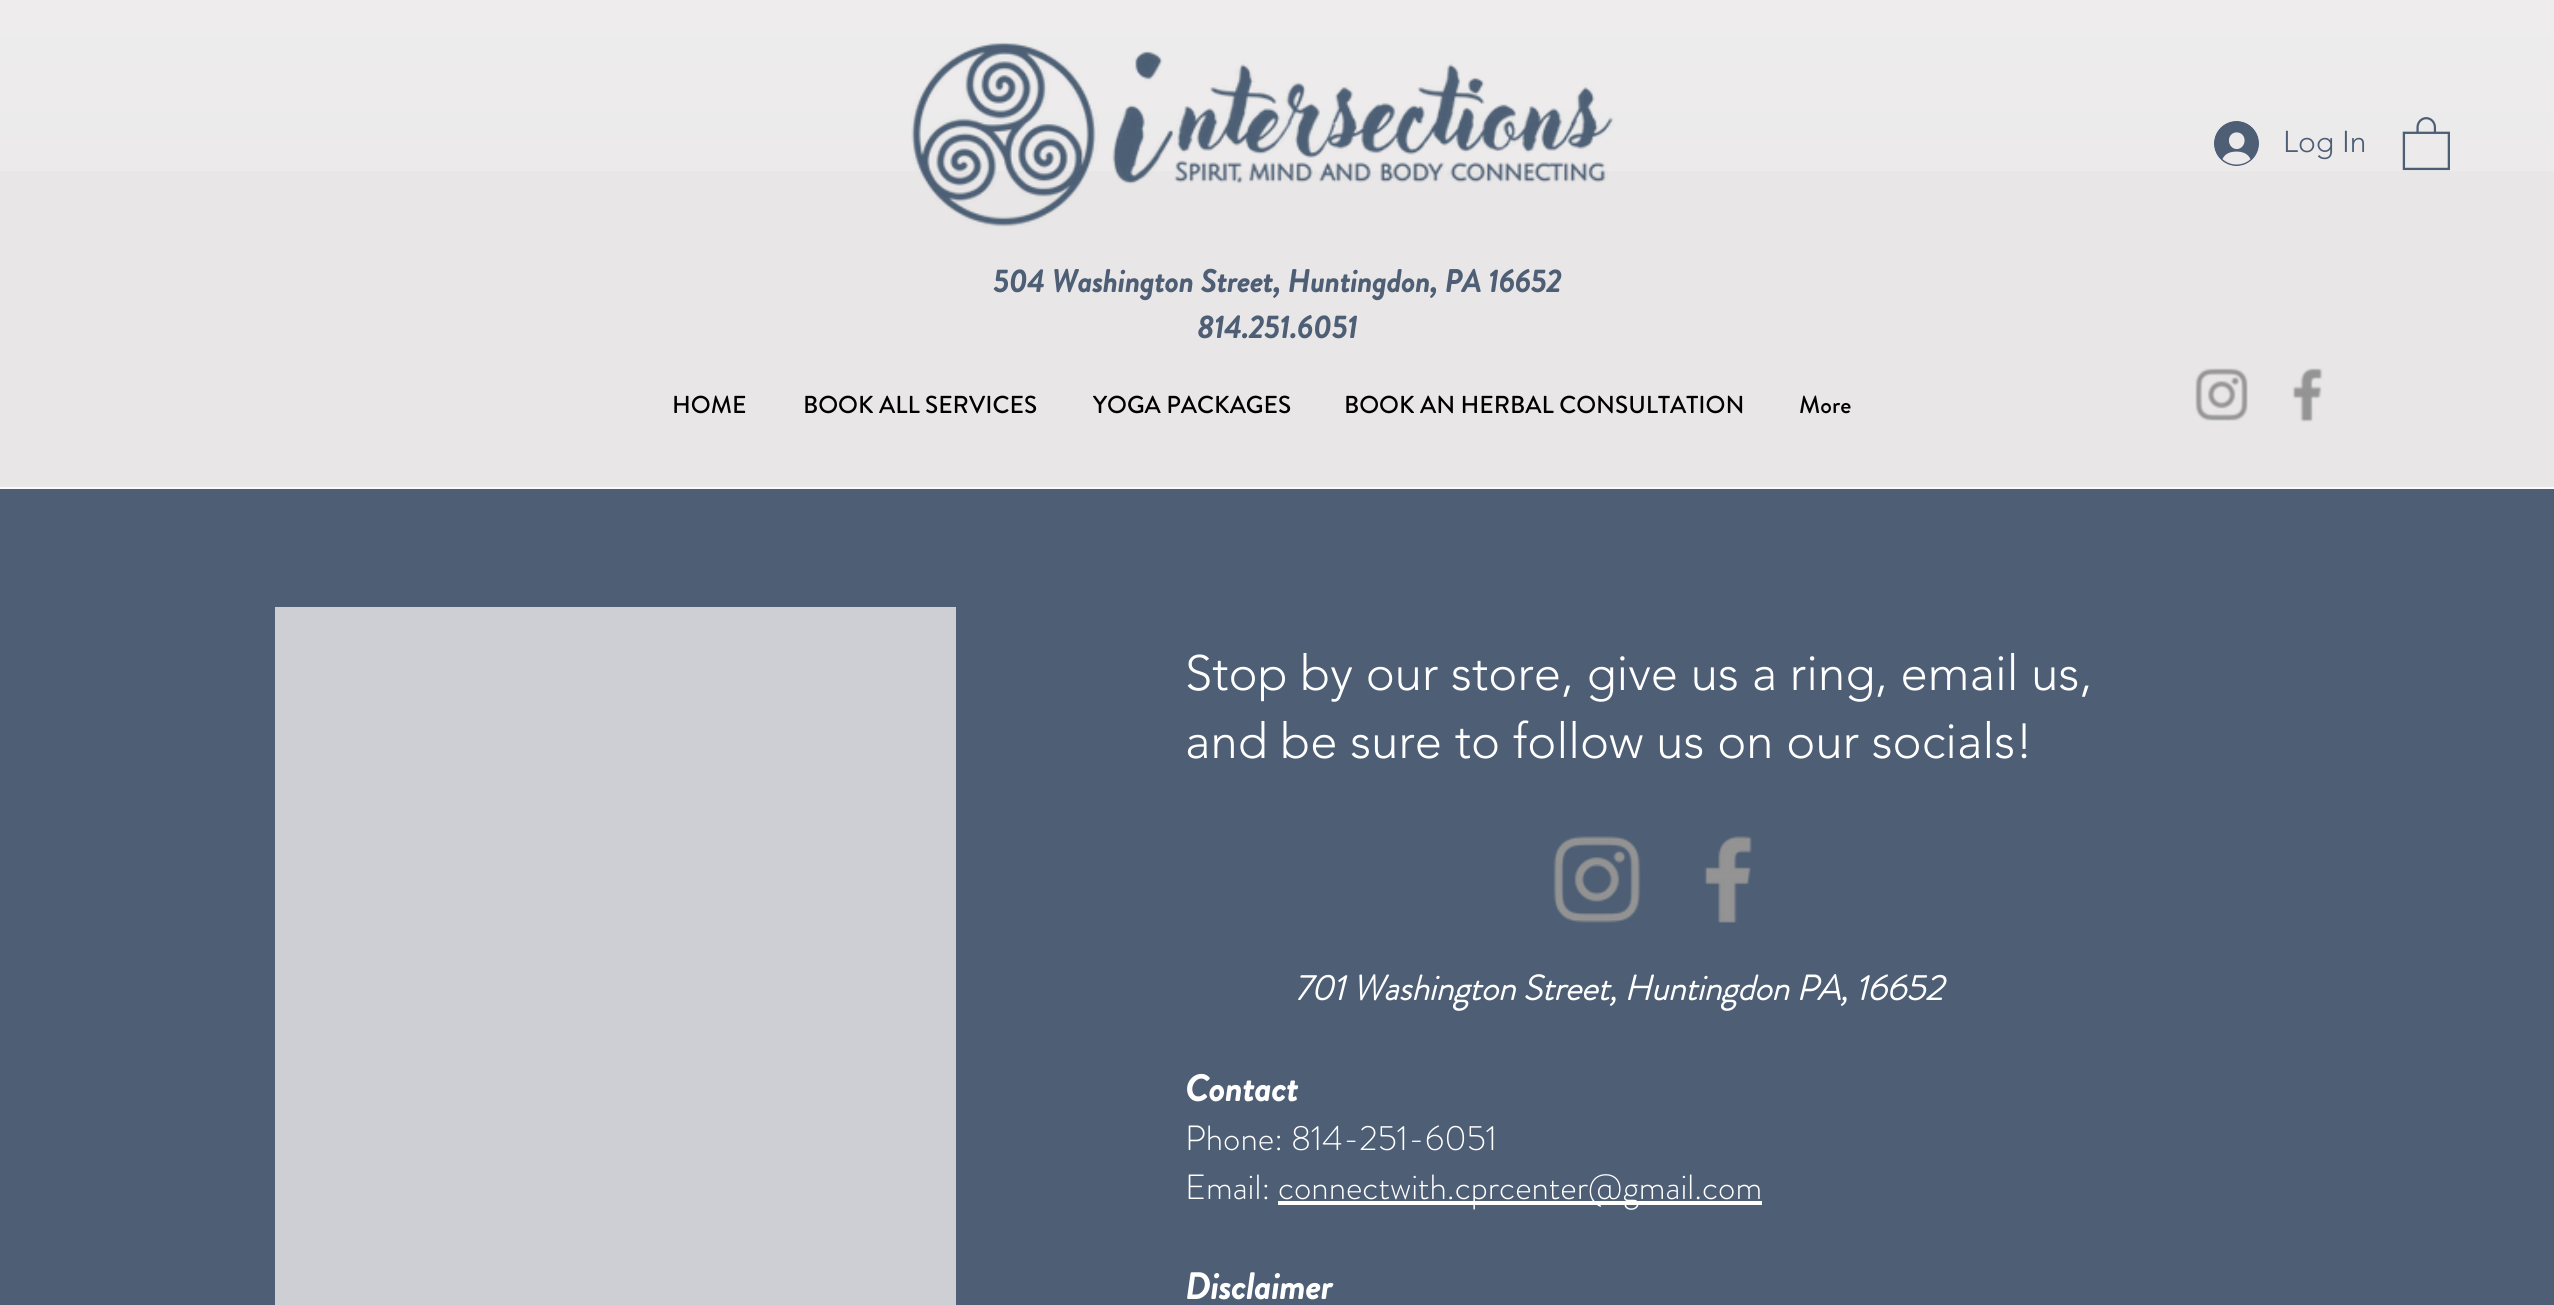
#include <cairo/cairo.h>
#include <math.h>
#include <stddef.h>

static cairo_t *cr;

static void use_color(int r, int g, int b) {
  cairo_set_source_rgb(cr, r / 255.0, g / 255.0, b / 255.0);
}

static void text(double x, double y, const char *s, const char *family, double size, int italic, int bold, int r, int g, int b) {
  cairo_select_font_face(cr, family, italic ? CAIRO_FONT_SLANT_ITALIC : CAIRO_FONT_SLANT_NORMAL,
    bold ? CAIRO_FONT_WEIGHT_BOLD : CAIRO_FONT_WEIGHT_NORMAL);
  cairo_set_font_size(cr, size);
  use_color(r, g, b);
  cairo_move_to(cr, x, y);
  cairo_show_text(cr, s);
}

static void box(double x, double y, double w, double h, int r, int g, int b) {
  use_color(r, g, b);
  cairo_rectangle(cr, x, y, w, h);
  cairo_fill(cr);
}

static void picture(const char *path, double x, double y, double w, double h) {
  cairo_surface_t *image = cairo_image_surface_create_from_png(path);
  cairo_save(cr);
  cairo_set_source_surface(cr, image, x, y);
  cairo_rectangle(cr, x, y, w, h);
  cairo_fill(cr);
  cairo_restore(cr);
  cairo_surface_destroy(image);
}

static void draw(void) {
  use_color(77, 94, 117);
  cairo_paint(cr);
  box(0, 0, 2554, 487, 232, 230, 230);
  picture("img_01.png", 0, 0, 2554, 171);
  picture("img_02.png", 2214, 121, 45, 45);
  picture("img_03.png", 2402, 117, 48, 54);
  picture("img_04.png", 2195, 368, 53, 53);
  picture("img_05.png", 2292, 368, 31, 54);
  picture("img_06.png", 911, 42, 703, 185);
  box(0, 487, 2554, 2, 250, 250, 250);
  box(275, 607, 681, 698, 205, 207, 213);
  picture("img_07.png", 1553, 836, 88, 87);
  picture("img_08.png", 1704, 836, 48, 87);
  box(1278, 1201, 484, 4, 255, 255, 255);
  text(2283, 152, "Log In", "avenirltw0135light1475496 Light", 30, 0, 0, 77, 94, 117);
  text(993, 292, "504 Washington Street, Huntingdon, PA 16652", "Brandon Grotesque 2", 31.5, 1, 1, 77, 94, 117);
  text(1197, 338, "814.251.6051", "Brandon Grotesque 2", 31.5, 1, 1, 77, 94, 117);
  text(672, 413, "HOME", "Brandon Grotesque Medium", 24.5, 0, 0, 0, 0, 0);
  text(803, 413, "BOOK ALL SERVICES", "Brandon Grotesque Medium", 24.5, 0, 0, 0, 0, 0);
  text(1093, 413, "YOGA PACKAGES", "Brandon Grotesque Medium", 24.5, 0, 0, 0, 0, 0);
  text(1344, 413, "BOOK AN HERBAL CONSULTATION", "Brandon Grotesque Medium", 24.5, 0, 0, 0, 0, 0);
  text(1799, 413, "More", "Brandon Grotesque Medium", 24.5, 0, 0, 0, 0, 0);
  text(1185, 690, "Stop by our store, give us a ring, email us,", "avenirltw0135light1475496 Light", 49, 0, 0, 255, 255, 255);
  text(1185, 758, "and be sure to follow us on our socials!", "avenirltw0135light1475496 Light", 49, 0, 0, 255, 255, 255);
  text(1294, 1000, "701 Washington Street, Huntingdon PA, 16652", "Brandon Grotesque", 35, 1, 1, 255, 255, 255);
  text(1185, 1101, "Contact", "Brandon Grotesque 2", 36.75, 1, 1, 255, 255, 255);
  text(1185, 1150, "Phone: 814-251-6051", "Brandon Grotesque Light", 35, 0, 0, 255, 255, 255);
  text(1185, 1199, "Email:", "Brandon Grotesque Light", 35, 0, 0, 255, 255, 255);
  text(1278, 1199, "connectwith.cprcenter@gmail.com", "Brandon Grotesque Light", 35, 0, 0, 255, 255, 255);
  text(1185, 1299, "Disclaimer", "Brandon Grotesque 2", 36.75, 1, 1, 255, 255, 255);
}

int main(void) {
  cairo_surface_t *surface = cairo_image_surface_create(CAIRO_FORMAT_RGB24, 2554, 1305);
  cr = cairo_create(surface);
  cairo_font_options_t *options = cairo_font_options_create();
  cairo_font_options_set_hint_metrics(options, CAIRO_HINT_METRICS_OFF);
  cairo_font_options_set_hint_style(options, CAIRO_HINT_STYLE_NONE);
  cairo_set_font_options(cr, options);
  cairo_set_miter_limit(cr, 4);
  draw();
  cairo_surface_write_to_png(surface, "out.png");
  cairo_font_options_destroy(options);
  cairo_destroy(cr);
  cairo_surface_destroy(surface);
  return 0;
}
